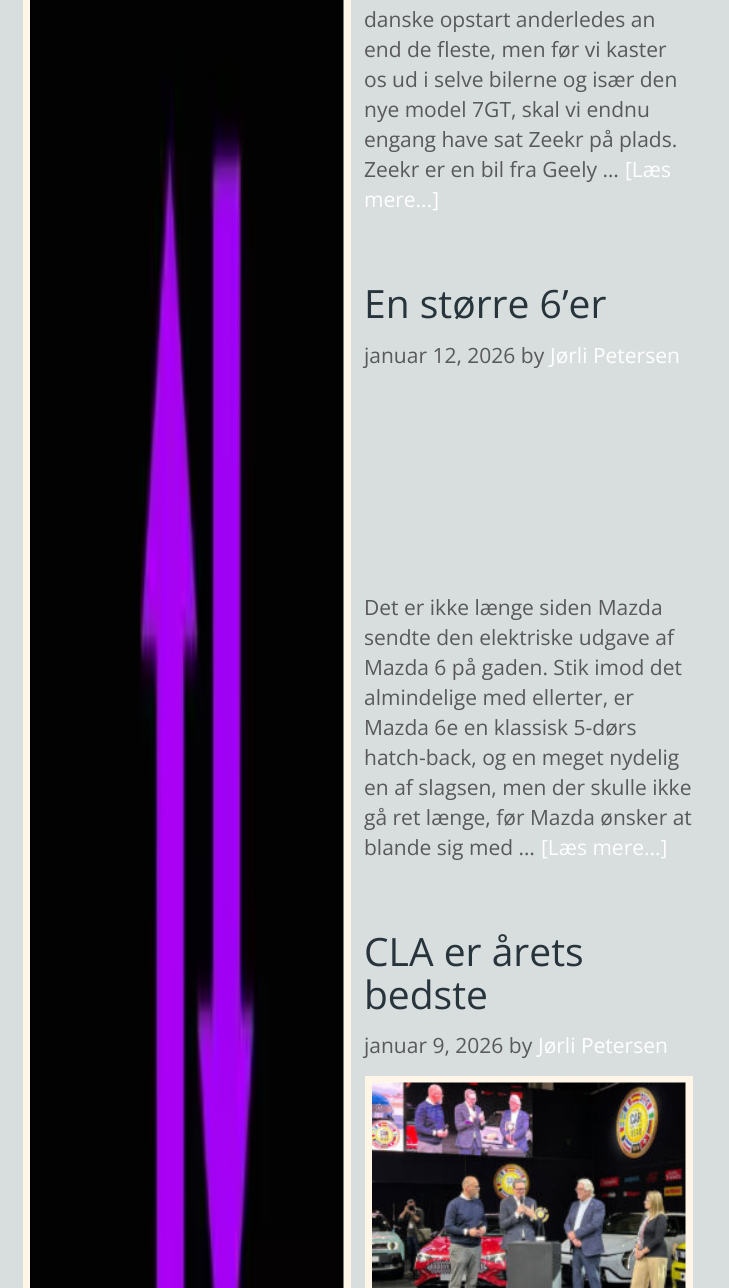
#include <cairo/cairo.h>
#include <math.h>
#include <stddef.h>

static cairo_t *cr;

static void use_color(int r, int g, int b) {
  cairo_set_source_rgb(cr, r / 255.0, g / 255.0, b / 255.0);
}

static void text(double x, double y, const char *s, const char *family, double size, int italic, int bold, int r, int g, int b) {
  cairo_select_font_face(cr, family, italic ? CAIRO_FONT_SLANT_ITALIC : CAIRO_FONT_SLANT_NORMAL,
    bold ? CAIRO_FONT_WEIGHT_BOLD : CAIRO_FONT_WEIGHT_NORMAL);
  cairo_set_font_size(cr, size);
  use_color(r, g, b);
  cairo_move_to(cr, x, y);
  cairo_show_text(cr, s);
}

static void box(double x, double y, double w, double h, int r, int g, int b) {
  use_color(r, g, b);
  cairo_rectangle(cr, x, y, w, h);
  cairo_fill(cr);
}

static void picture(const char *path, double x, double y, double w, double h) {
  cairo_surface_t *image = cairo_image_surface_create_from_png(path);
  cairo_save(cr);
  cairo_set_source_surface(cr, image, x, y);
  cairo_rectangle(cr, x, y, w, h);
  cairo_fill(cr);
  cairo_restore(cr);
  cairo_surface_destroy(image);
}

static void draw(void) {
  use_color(216, 221, 221);
  cairo_paint(cr);
  box(23, 0, 328, 1288, 255, 246, 232);
  picture("img_01.png", 30, 0, 314, 1288);
  box(365, 1076, 328, 212, 255, 246, 232);
  picture("img_02.png", 372, 1082, 314, 206);
  text(364, 27, "danske opstart anderledes an", "Open Sans", 21, 0, 0, 88, 89, 91);
  text(364, 57, "end de fleste, men før vi kaster", "Open Sans", 21, 0, 0, 88, 89, 91);
  text(364, 87, "os ud i selve bilerne og især den", "Open Sans", 21, 0, 0, 88, 89, 91);
  text(364, 117, "nye model 7GT, skal vi endnu", "Open Sans", 21, 0, 0, 88, 89, 91);
  text(364, 147, "engang have sat Zeekr på plads.", "Open Sans", 21, 0, 0, 88, 89, 91);
  text(364, 177, "Zeekr er en bil fra Geely …", "Open Sans", 21, 0, 0, 88, 89, 91);
  text(625, 177, "[Læs", "Open Sans", 21, 0, 0, 255, 255, 255);
  text(364, 207, "mere...]", "Open Sans", 21, 0, 0, 255, 255, 255);
  text(364, 318, "En større 6’er", "Open Sans", 39, 0, 0, 39, 52, 60);
  text(364, 363, "januar 12, 2026 by", "Open Sans", 21, 0, 0, 88, 89, 91);
  text(550, 363, "Jørli Petersen", "Open Sans", 21, 0, 0, 255, 255, 255);
  text(364, 615, "Det er ikke længe siden Mazda", "Open Sans", 21, 0, 0, 88, 89, 91);
  text(364, 645, "sendte den elektriske udgave af", "Open Sans", 21, 0, 0, 88, 89, 91);
  text(364, 675, "Mazda 6 på gaden. Stik imod det", "Open Sans", 21, 0, 0, 88, 89, 91);
  text(364, 705, "almindelige med ellerter, er", "Open Sans", 21, 0, 0, 88, 89, 91);
  text(364, 735, "Mazda 6e en klassisk 5-dørs", "Open Sans", 21, 0, 0, 88, 89, 91);
  text(364, 765, "hatch-back, og en meget nydelig", "Open Sans", 21, 0, 0, 88, 89, 91);
  text(364, 795, "en af slagsen, men der skulle ikke", "Open Sans", 21, 0, 0, 88, 89, 91);
  text(364, 825, "gå ret længe, før Mazda ønsker at", "Open Sans", 21, 0, 0, 88, 89, 91);
  text(364, 855, "blande sig med …", "Open Sans", 21, 0, 0, 88, 89, 91);
  text(541, 855, "[Læs mere...]", "Open Sans", 21, 0, 0, 255, 255, 255);
  text(364, 966, "CLA er årets", "Open Sans", 39, 0, 0, 39, 52, 60);
  text(364, 1009, "bedste", "Open Sans", 39, 0, 0, 39, 52, 60);
  text(364, 1053, "januar 9, 2026 by", "Open Sans", 21, 0, 0, 88, 89, 91);
  text(538, 1053, "Jørli Petersen", "Open Sans", 21, 0, 0, 255, 255, 255);
}

int main(void) {
  cairo_surface_t *surface = cairo_image_surface_create(CAIRO_FORMAT_RGB24, 729, 1288);
  cr = cairo_create(surface);
  cairo_font_options_t *options = cairo_font_options_create();
  cairo_font_options_set_hint_metrics(options, CAIRO_HINT_METRICS_OFF);
  cairo_font_options_set_hint_style(options, CAIRO_HINT_STYLE_NONE);
  cairo_set_font_options(cr, options);
  cairo_set_miter_limit(cr, 4);
  draw();
  cairo_surface_write_to_png(surface, "out.png");
  cairo_font_options_destroy(options);
  cairo_destroy(cr);
  cairo_surface_destroy(surface);
  return 0;
}
